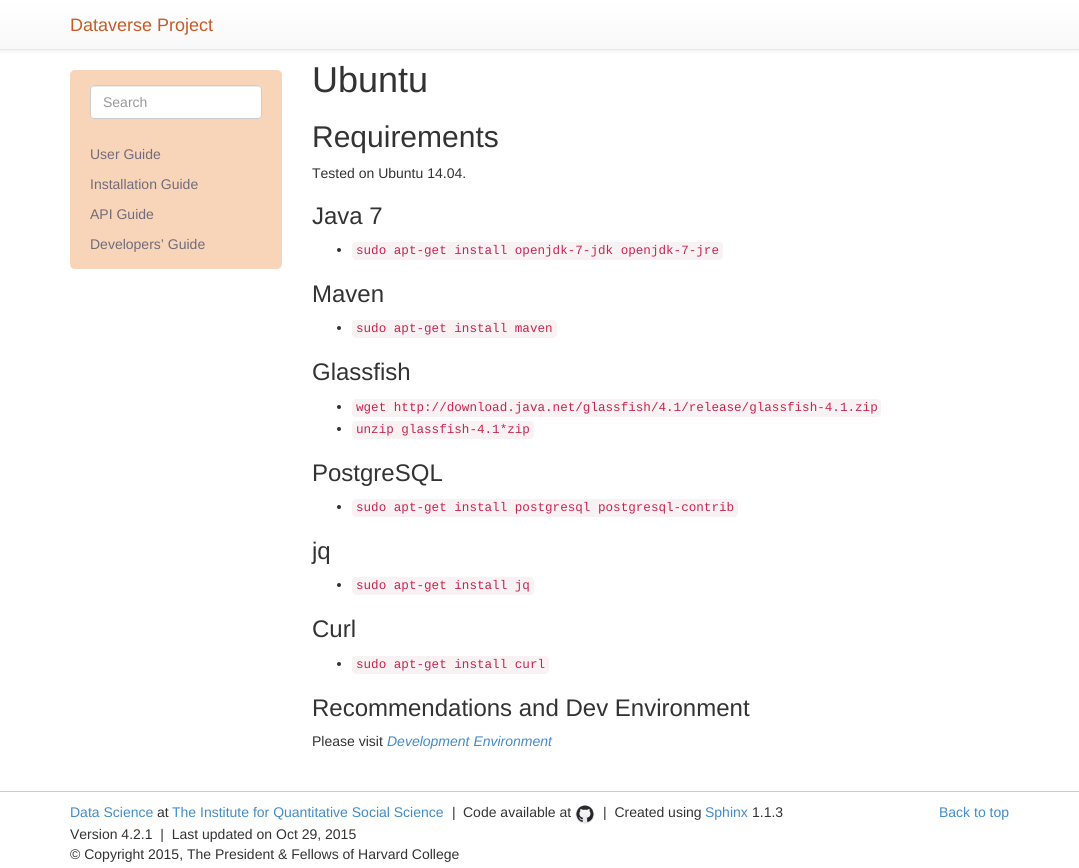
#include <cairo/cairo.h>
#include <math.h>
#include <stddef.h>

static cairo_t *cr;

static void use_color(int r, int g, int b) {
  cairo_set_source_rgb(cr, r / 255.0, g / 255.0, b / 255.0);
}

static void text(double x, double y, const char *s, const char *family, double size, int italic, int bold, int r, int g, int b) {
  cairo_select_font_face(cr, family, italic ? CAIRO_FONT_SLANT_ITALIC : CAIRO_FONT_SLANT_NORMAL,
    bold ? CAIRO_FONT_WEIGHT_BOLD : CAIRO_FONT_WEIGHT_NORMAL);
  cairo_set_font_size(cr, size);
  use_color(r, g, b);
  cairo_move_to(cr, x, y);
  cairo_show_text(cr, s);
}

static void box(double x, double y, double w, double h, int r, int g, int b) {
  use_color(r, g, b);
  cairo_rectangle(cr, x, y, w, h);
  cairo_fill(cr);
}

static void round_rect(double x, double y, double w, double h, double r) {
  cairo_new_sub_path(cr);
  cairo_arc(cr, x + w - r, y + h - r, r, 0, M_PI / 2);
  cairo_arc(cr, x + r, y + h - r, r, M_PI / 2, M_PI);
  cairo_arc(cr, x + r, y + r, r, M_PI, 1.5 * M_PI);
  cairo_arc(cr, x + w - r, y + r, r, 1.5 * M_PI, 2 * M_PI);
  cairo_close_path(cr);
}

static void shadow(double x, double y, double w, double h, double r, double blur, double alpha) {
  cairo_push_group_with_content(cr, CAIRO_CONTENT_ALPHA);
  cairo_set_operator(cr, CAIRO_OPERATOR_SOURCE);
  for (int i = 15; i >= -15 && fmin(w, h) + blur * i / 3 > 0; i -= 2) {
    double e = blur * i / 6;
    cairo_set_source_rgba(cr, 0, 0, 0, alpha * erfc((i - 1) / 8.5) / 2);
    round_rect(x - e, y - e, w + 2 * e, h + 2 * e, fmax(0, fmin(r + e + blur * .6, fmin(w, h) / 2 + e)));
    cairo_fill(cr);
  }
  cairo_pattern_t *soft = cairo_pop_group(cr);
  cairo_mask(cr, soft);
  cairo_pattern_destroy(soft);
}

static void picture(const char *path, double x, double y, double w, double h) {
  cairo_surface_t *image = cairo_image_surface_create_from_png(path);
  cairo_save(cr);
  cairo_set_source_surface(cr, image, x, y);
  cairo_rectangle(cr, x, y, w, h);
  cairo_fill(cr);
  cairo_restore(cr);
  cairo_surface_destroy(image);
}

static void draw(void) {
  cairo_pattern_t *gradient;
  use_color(255, 255, 255);
  cairo_paint(cr);
  use_color(0, 0, 0);
  shadow(0, 1, 1079, 50, 0, 2.5, 0.07);
  gradient = cairo_pattern_create_linear(540, 0, 540, 49);
  cairo_pattern_add_color_stop_rgba(gradient, 0, 1, 1, 1, 1);
  cairo_pattern_add_color_stop_rgba(gradient, 1, 0.973, 0.973, 0.973, 1);
  cairo_set_source(cr, gradient);
  cairo_pattern_destroy(gradient);
  cairo_rectangle(cr, 0, 0, 1079, 49);
  cairo_fill(cr);
  box(0, 49, 1079, 1, 231, 231, 231);
  use_color(248, 213, 184);
  round_rect(70, 70, 212, 199, 5);
  cairo_fill(cr);
  use_color(255, 255, 255);
  round_rect(90, 85, 172, 34, 4);
  cairo_fill(cr);
  use_color(236, 236, 236);
  cairo_new_path(cr);
  cairo_move_to(cr, 94, 87);
  cairo_line_to(cr, 258, 87);
  cairo_curve_to(cr, 260, 87, 261, 88, 261, 90);
  cairo_line_to(cr, 261, 89);
  cairo_curve_to(cr, 261, 87, 260, 86, 258, 86);
  cairo_line_to(cr, 94, 86);
  cairo_curve_to(cr, 92, 86, 91, 87, 91, 89);
  cairo_line_to(cr, 91, 90);
  cairo_curve_to(cr, 91, 88, 92, 87, 94, 87);
  cairo_close_path(cr);
  cairo_fill(cr);
  round_rect(90.5, 85.5, 171, 33, 3.5);
  use_color(204, 204, 204);
  cairo_set_line_width(cr, 1);
  cairo_stroke(cr);
  use_color(51, 51, 51);
  cairo_arc(cr, 339, 250, 2, 0, 2 * M_PI);
  cairo_fill(cr);
  use_color(249, 242, 244);
  cairo_new_path(cr);
  cairo_move_to(cr, 356, 242);
  cairo_line_to(cr, 386, 242);
  cairo_line_to(cr, 386, 260);
  cairo_line_to(cr, 356, 260);
  cairo_curve_to(cr, 354, 260, 352, 258, 352, 256);
  cairo_line_to(cr, 352, 246);
  cairo_curve_to(cr, 352, 244, 354, 242, 356, 242);
  cairo_close_path(cr);
  cairo_fill(cr);
  box(386, 242, 235, 18, 249, 242, 244);
  cairo_new_path(cr);
  cairo_move_to(cr, 621, 242);
  cairo_line_to(cr, 719, 242);
  cairo_curve_to(cr, 721, 242, 723, 244, 723, 246);
  cairo_line_to(cr, 723, 256);
  cairo_curve_to(cr, 723, 258, 721, 260, 719, 260);
  cairo_line_to(cr, 621, 260);
  cairo_close_path(cr);
  cairo_fill(cr);
  use_color(51, 51, 51);
  cairo_arc(cr, 339, 328, 2, 0, 2 * M_PI);
  cairo_fill(cr);
  use_color(249, 242, 244);
  cairo_new_path(cr);
  cairo_move_to(cr, 356, 320);
  cairo_line_to(cr, 386, 320);
  cairo_line_to(cr, 386, 338);
  cairo_line_to(cr, 356, 338);
  cairo_curve_to(cr, 354, 338, 352, 336, 352, 334);
  cairo_line_to(cr, 352, 324);
  cairo_curve_to(cr, 352, 322, 354, 320, 356, 320);
  cairo_close_path(cr);
  cairo_fill(cr);
  box(386, 320, 129, 18, 249, 242, 244);
  cairo_new_path(cr);
  cairo_move_to(cr, 515, 320);
  cairo_line_to(cr, 553, 320);
  cairo_curve_to(cr, 555, 320, 557, 322, 557, 324);
  cairo_line_to(cr, 557, 334);
  cairo_curve_to(cr, 557, 336, 555, 338, 553, 338);
  cairo_line_to(cr, 515, 338);
  cairo_close_path(cr);
  cairo_fill(cr);
  use_color(51, 51, 51);
  cairo_arc(cr, 339, 407, 2, 0, 2 * M_PI);
  cairo_fill(cr);
  use_color(249, 242, 244);
  cairo_new_path(cr);
  cairo_move_to(cr, 356, 399);
  cairo_line_to(cr, 386, 399);
  cairo_line_to(cr, 386, 417);
  cairo_line_to(cr, 356, 417);
  cairo_curve_to(cr, 354, 417, 352, 415, 352, 413);
  cairo_line_to(cr, 352, 403);
  cairo_curve_to(cr, 352, 401, 354, 399, 356, 399);
  cairo_close_path(cr);
  cairo_fill(cr);
  box(386, 399, 8, 18, 249, 242, 244);
  cairo_new_path(cr);
  cairo_move_to(cr, 394, 399);
  cairo_line_to(cr, 877, 399);
  cairo_curve_to(cr, 879, 399, 881, 401, 881, 403);
  cairo_line_to(cr, 881, 413);
  cairo_curve_to(cr, 881, 415, 879, 417, 877, 417);
  cairo_line_to(cr, 394, 417);
  cairo_close_path(cr);
  cairo_fill(cr);
  use_color(51, 51, 51);
  cairo_arc(cr, 339, 429, 2, 0, 2 * M_PI);
  cairo_fill(cr);
  use_color(249, 242, 244);
  cairo_new_path(cr);
  cairo_move_to(cr, 356, 421);
  cairo_line_to(cr, 394, 421);
  cairo_line_to(cr, 394, 439);
  cairo_line_to(cr, 356, 439);
  cairo_curve_to(cr, 354, 439, 352, 437, 352, 435);
  cairo_line_to(cr, 352, 425);
  cairo_curve_to(cr, 352, 423, 354, 421, 356, 421);
  cairo_close_path(cr);
  cairo_fill(cr);
  box(394, 421, 7, 18, 249, 242, 244);
  cairo_new_path(cr);
  cairo_move_to(cr, 401, 421);
  cairo_line_to(cr, 530, 421);
  cairo_curve_to(cr, 532, 421, 534, 423, 534, 425);
  cairo_line_to(cr, 534, 435);
  cairo_curve_to(cr, 534, 437, 532, 439, 530, 439);
  cairo_line_to(cr, 401, 439);
  cairo_close_path(cr);
  cairo_fill(cr);
  use_color(51, 51, 51);
  cairo_arc(cr, 339, 507, 2, 0, 2 * M_PI);
  cairo_fill(cr);
  use_color(249, 242, 244);
  cairo_new_path(cr);
  cairo_move_to(cr, 356, 499);
  cairo_line_to(cr, 386, 499);
  cairo_line_to(cr, 386, 517);
  cairo_line_to(cr, 356, 517);
  cairo_curve_to(cr, 354, 517, 352, 515, 352, 513);
  cairo_line_to(cr, 352, 503);
  cairo_curve_to(cr, 352, 501, 354, 499, 356, 499);
  cairo_close_path(cr);
  cairo_fill(cr);
  box(386, 499, 212, 18, 249, 242, 244);
  cairo_new_path(cr);
  cairo_move_to(cr, 598, 499);
  cairo_line_to(cr, 734, 499);
  cairo_curve_to(cr, 736, 499, 738, 501, 738, 503);
  cairo_line_to(cr, 738, 513);
  cairo_curve_to(cr, 738, 515, 736, 517, 734, 517);
  cairo_line_to(cr, 598, 517);
  cairo_close_path(cr);
  cairo_fill(cr);
  use_color(51, 51, 51);
  cairo_arc(cr, 339, 585, 2, 0, 2 * M_PI);
  cairo_fill(cr);
  use_color(249, 242, 244);
  cairo_new_path(cr);
  cairo_move_to(cr, 356, 577);
  cairo_line_to(cr, 386, 577);
  cairo_line_to(cr, 386, 595);
  cairo_line_to(cr, 356, 595);
  cairo_curve_to(cr, 354, 595, 352, 593, 352, 591);
  cairo_line_to(cr, 352, 581);
  cairo_curve_to(cr, 352, 579, 354, 577, 356, 577);
  cairo_close_path(cr);
  cairo_fill(cr);
  box(386, 577, 129, 18, 249, 242, 244);
  cairo_new_path(cr);
  cairo_move_to(cr, 515, 577);
  cairo_line_to(cr, 530, 577);
  cairo_curve_to(cr, 532, 577, 534, 579, 534, 581);
  cairo_line_to(cr, 534, 591);
  cairo_curve_to(cr, 534, 593, 532, 595, 530, 595);
  cairo_line_to(cr, 515, 595);
  cairo_close_path(cr);
  cairo_fill(cr);
  use_color(51, 51, 51);
  cairo_arc(cr, 339, 664, 2, 0, 2 * M_PI);
  cairo_fill(cr);
  use_color(249, 242, 244);
  cairo_new_path(cr);
  cairo_move_to(cr, 356, 656);
  cairo_line_to(cr, 386, 656);
  cairo_line_to(cr, 386, 674);
  cairo_line_to(cr, 356, 674);
  cairo_curve_to(cr, 354, 674, 352, 672, 352, 670);
  cairo_line_to(cr, 352, 660);
  cairo_curve_to(cr, 352, 658, 354, 656, 356, 656);
  cairo_close_path(cr);
  cairo_fill(cr);
  box(386, 656, 129, 18, 249, 242, 244);
  cairo_new_path(cr);
  cairo_move_to(cr, 515, 656);
  cairo_line_to(cr, 545, 656);
  cairo_curve_to(cr, 547, 656, 549, 658, 549, 660);
  cairo_line_to(cr, 549, 670);
  cairo_curve_to(cr, 549, 672, 547, 674, 545, 674);
  cairo_line_to(cr, 515, 674);
  cairo_close_path(cr);
  cairo_fill(cr);
  box(0, 791, 1079, 1, 204, 204, 204);
  picture("img_01.png", 575, 805, 20, 19);
  text(70, 31, "Dataverse Project", "Liberation Sans", 18, 0, 0, 197, 91, 40);
  text(103, 107, "Search", "Liberation Sans", 14, 0, 0, 153, 153, 153);
  text(90, 159, "User Guide", "Liberation Sans", 14, 0, 0, 113, 107, 122);
  text(90, 189, "Installation Guide", "Liberation Sans", 14, 0, 0, 113, 107, 122);
  text(90, 219, "API Guide", "Liberation Sans", 14, 0, 0, 113, 107, 122);
  text(90, 249, "Developers’ Guide", "Liberation Sans", 14, 0, 0, 113, 107, 122);
  text(312, 92, "Ubuntu", "Liberation Sans", 36, 0, 0, 51, 51, 51);
  text(312, 147, "Requirements", "Liberation Sans", 30, 0, 0, 51, 51, 51);
  text(312, 178, "Tested on Ubuntu 14.04.", "Liberation Sans", 14, 0, 0, 51, 51, 51);
  text(312, 224, "Java 7", "Liberation Sans", 24, 0, 0, 51, 51, 51);
  text(356, 254, "sudo apt-get install openjdk-7-jdk openjdk-7-jre", "Liberation Mono", 12.6, 0, 0, 199, 37, 78);
  text(312, 302, "Maven", "Liberation Sans", 24, 0, 0, 51, 51, 51);
  text(356, 332, "sudo apt-get install maven", "Liberation Mono", 12.6, 0, 0, 199, 37, 78);
  text(312, 380, "Glassfish", "Liberation Sans", 24, 0, 0, 51, 51, 51);
  text(356, 411, "wget http://download.java.net/glassfish/4.1/release/glassfish-4.1.zip", "Liberation Mono", 12.6, 0, 0, 199, 37, 78);
  text(356, 433, "unzip glassfish-4.1*zip", "Liberation Mono", 12.6, 0, 0, 199, 37, 78);
  text(312, 481, "PostgreSQL", "Liberation Sans", 24, 0, 0, 51, 51, 51);
  text(356, 511, "sudo apt-get install postgresql postgresql-contrib", "Liberation Mono", 12.6, 0, 0, 199, 37, 78);
  text(312, 559, "jq", "Liberation Sans", 24, 0, 0, 51, 51, 51);
  text(356, 589, "sudo apt-get install jq", "Liberation Mono", 12.6, 0, 0, 199, 37, 78);
  text(312, 637, "Curl", "Liberation Sans", 24, 0, 0, 51, 51, 51);
  text(356, 668, "sudo apt-get install curl", "Liberation Mono", 12.6, 0, 0, 199, 37, 78);
  text(312, 716, "Recommendations and Dev Environment", "Liberation Sans", 24, 0, 0, 51, 51, 51);
  text(312, 746, "Please visit", "Liberation Sans", 14, 0, 0, 51, 51, 51);
  text(387, 746, "Development Environment", "Liberation Sans", 14, 1, 0, 66, 139, 202);
  text(70, 817, "Data Science", "Liberation Sans", 14, 0, 0, 66, 139, 202);
  text(157, 817, "at", "Liberation Sans", 14, 0, 0, 51, 51, 51);
  text(172, 817, "The Institute for Quantitative Social Science", "Liberation Sans", 14, 0, 0, 66, 139, 202);
  text(452, 817, "|", "Liberation Sans", 14, 0, 0, 51, 51, 51);
  text(463, 817, "Code available at", "Liberation Sans", 14, 0, 0, 51, 51, 51);
  text(603, 817, "|  Created using", "Liberation Sans", 14, 0, 0, 51, 51, 51);
  text(705, 817, "Sphinx", "Liberation Sans", 14, 0, 0, 66, 139, 202);
  text(752, 817, "1.1.3", "Liberation Sans", 14, 0, 0, 51, 51, 51);
  text(70, 839, "Version 4.2.1  |  Last updated on Oct 29, 2015", "Liberation Sans", 14, 0, 0, 51, 51, 51);
  text(70, 859, "© Copyright 2015, The President & Fellows of Harvard College", "Liberation Sans", 14, 0, 0, 51, 51, 51);
  text(939, 817, "Back to top", "Liberation Sans", 14, 0, 0, 66, 139, 202);
}

int main(void) {
  cairo_surface_t *surface = cairo_image_surface_create(CAIRO_FORMAT_RGB24, 1079, 868);
  cr = cairo_create(surface);
  cairo_font_options_t *options = cairo_font_options_create();
  cairo_font_options_set_hint_metrics(options, CAIRO_HINT_METRICS_OFF);
  cairo_font_options_set_hint_style(options, CAIRO_HINT_STYLE_NONE);
  cairo_set_font_options(cr, options);
  cairo_set_miter_limit(cr, 4);
  draw();
  cairo_surface_write_to_png(surface, "out.png");
  cairo_font_options_destroy(options);
  cairo_destroy(cr);
  cairo_surface_destroy(surface);
  return 0;
}
